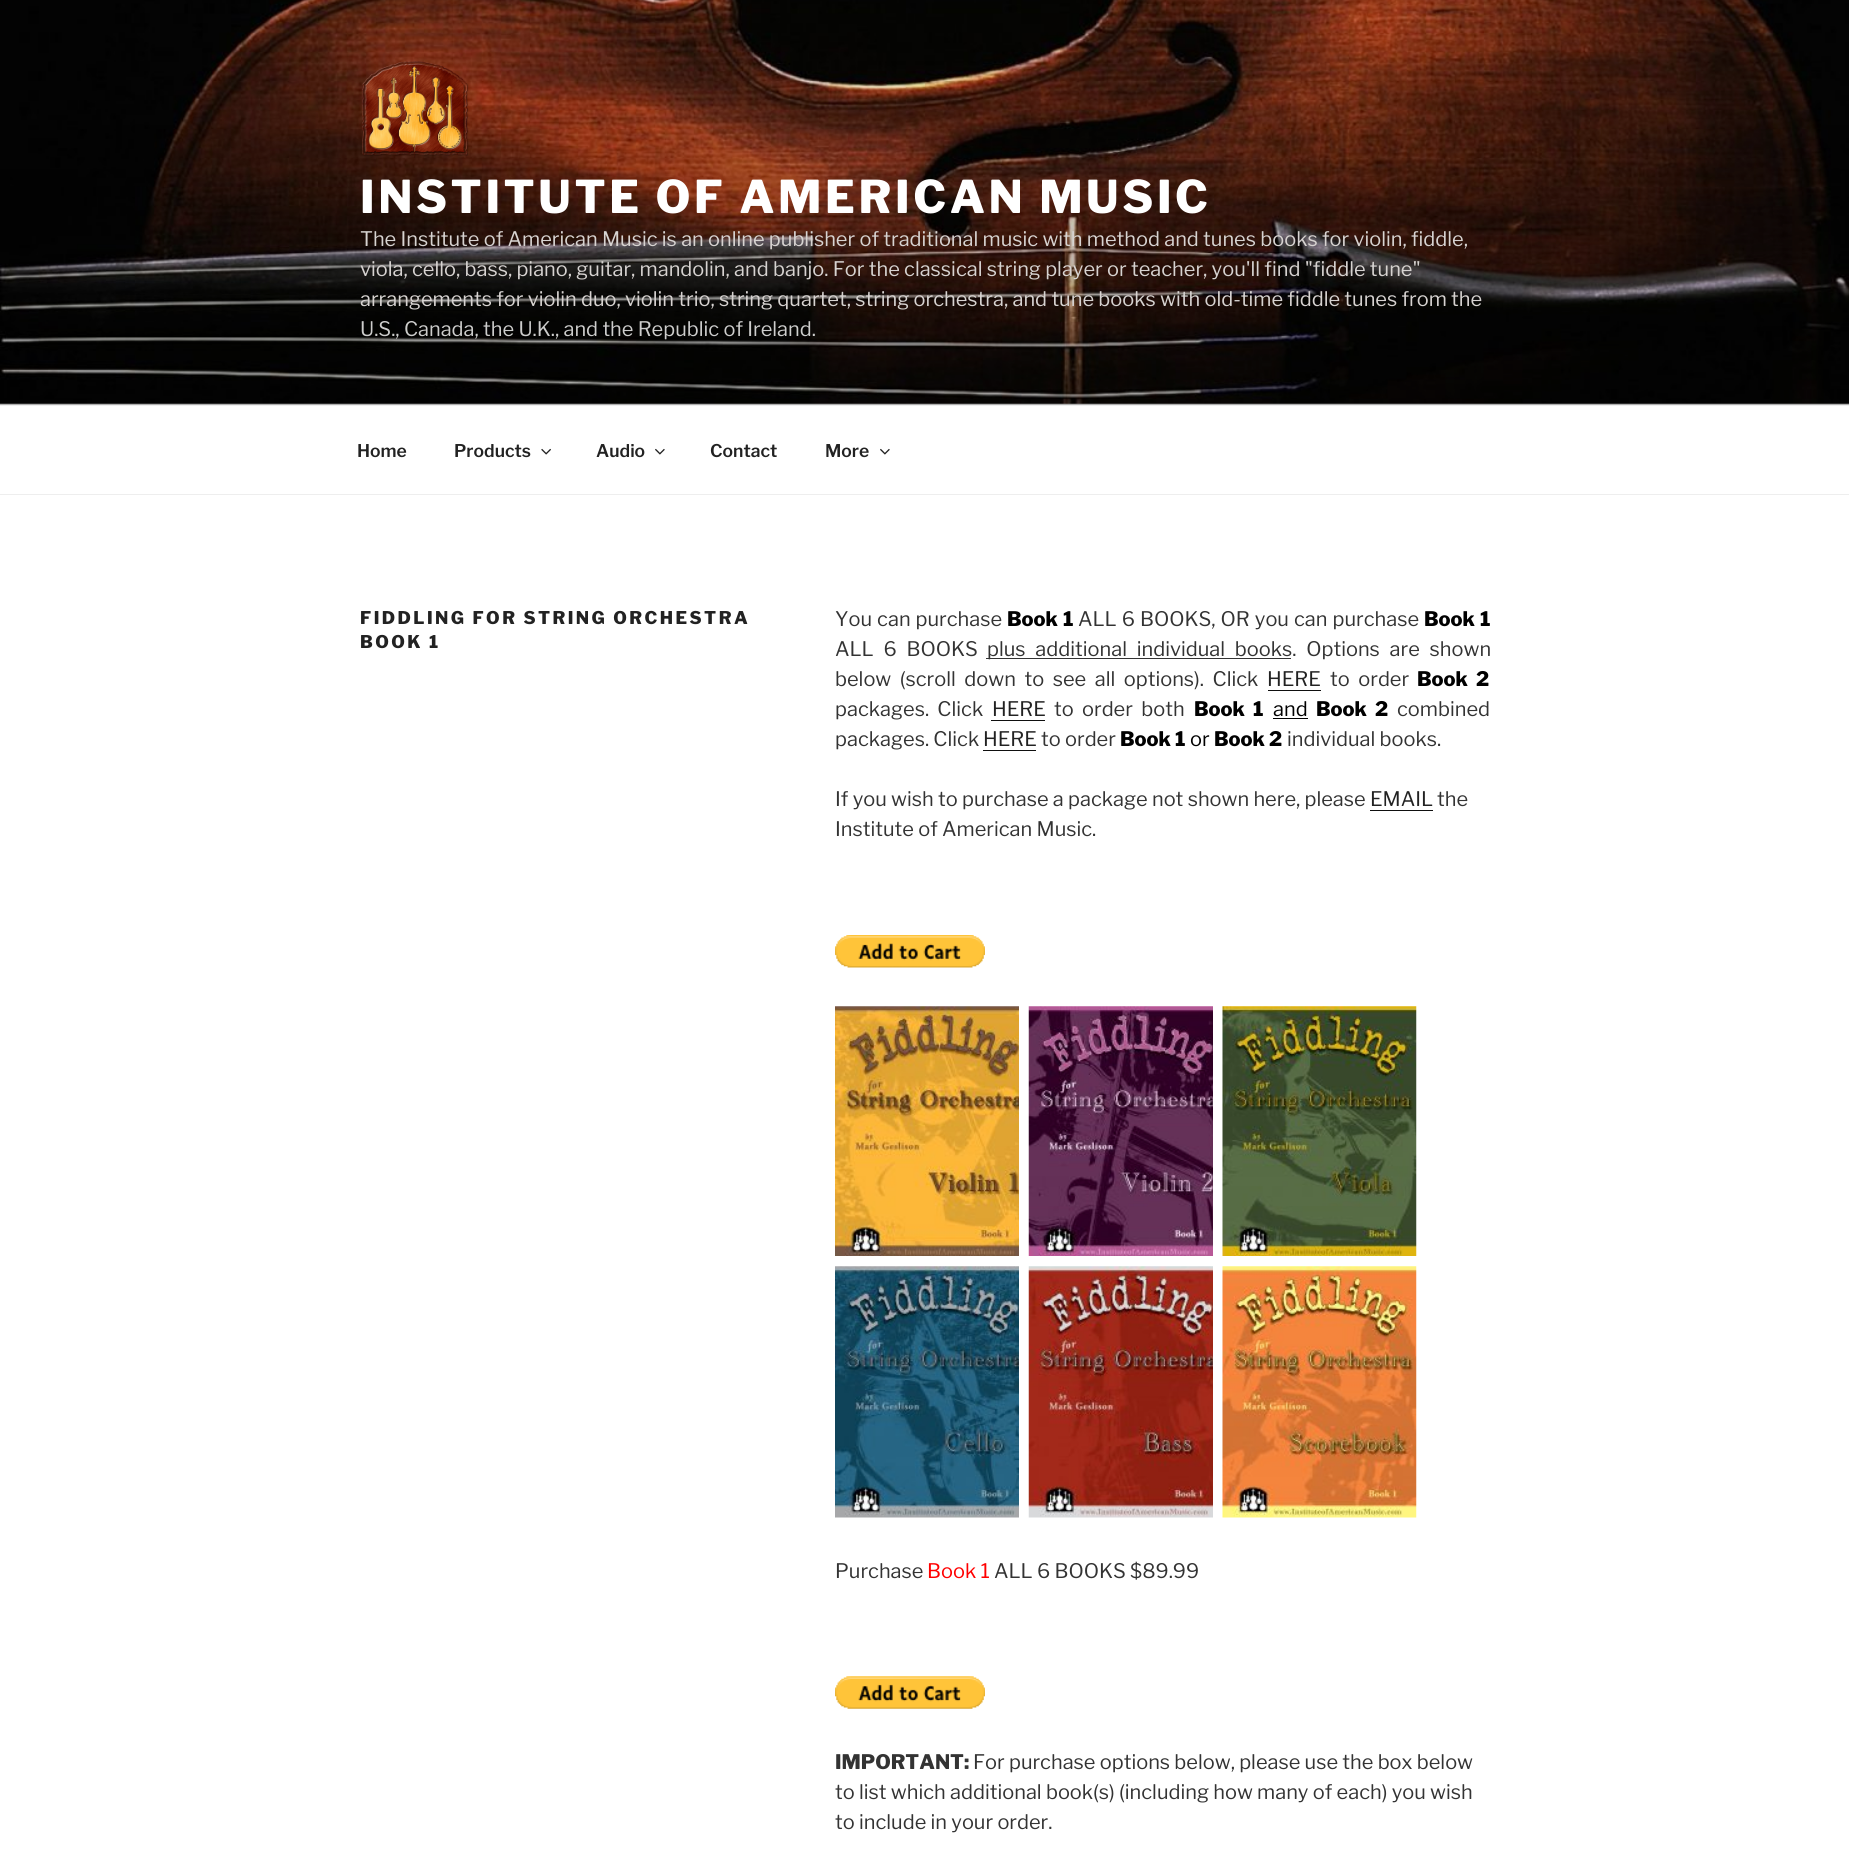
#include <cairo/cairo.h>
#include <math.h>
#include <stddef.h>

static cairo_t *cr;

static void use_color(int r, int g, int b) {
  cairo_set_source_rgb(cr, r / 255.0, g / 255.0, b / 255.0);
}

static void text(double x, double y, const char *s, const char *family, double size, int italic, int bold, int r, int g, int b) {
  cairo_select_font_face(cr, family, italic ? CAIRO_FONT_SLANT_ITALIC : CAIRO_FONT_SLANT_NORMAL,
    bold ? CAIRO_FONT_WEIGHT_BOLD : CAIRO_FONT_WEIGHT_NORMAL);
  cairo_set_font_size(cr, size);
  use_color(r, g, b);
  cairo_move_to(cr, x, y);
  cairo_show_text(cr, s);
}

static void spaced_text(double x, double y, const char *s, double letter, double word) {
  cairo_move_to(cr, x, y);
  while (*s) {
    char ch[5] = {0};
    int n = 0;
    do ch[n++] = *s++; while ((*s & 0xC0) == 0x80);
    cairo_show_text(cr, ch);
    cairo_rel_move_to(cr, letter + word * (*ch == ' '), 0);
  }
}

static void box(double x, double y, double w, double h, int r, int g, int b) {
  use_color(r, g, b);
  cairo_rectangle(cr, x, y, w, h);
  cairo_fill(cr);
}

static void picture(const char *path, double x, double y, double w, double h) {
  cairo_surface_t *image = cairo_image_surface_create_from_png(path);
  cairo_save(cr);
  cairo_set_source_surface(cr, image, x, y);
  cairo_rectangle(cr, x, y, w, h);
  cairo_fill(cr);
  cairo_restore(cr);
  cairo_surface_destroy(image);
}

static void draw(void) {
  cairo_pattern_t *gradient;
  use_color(255, 255, 255);
  cairo_paint(cr);
  box(0, 403, 1849, 2, 250, 250, 250);
  picture("img_01.png", 0, 0, 1849, 404);
  gradient = cairo_pattern_create_linear(925, 0, 925, 405);
  cairo_pattern_add_color_stop_rgba(gradient, 0, 0, 0, 0, 0);
  cairo_pattern_add_color_stop_rgba(gradient, 0.75, 0, 0, 0, 0.3);
  cairo_pattern_add_color_stop_rgba(gradient, 1, 0, 0, 0, 0.3);
  cairo_set_source(cr, gradient);
  cairo_pattern_destroy(gradient);
  cairo_rectangle(cr, 0, 22, 1849, 383);
  cairo_fill(cr);
  picture("img_02.png", 362, 61, 107, 97);
  box(0, 405, 1849, 1, 238, 238, 238);
  box(0, 494, 1849, 1, 238, 238, 238);
  picture("img_03.png", 541, 448, 10, 7);
  picture("img_04.png", 655, 448, 10, 7);
  picture("img_04.png", 880, 448, 10, 7);
  box(986, 658, 305, 1, 51, 51, 51);
  box(1268, 690, 53, 1, 15, 15, 15);
  box(991, 720, 54, 1, 15, 15, 15);
  box(1273, 718, 35, 1, 0, 0, 0);
  box(983, 750, 53, 1, 15, 15, 15);
  box(1370, 810, 63, 1, 15, 15, 15);
  picture("img_05.png", 835, 935, 150, 33);
  picture("img_06.png", 835, 1006, 184, 250);
  picture("img_07.png", 1028, 1006, 185, 250);
  picture("img_08.png", 1222, 1006, 195, 250);
  picture("img_09.png", 835, 1266, 184, 252);
  picture("img_10.png", 1028, 1266, 185, 252);
  picture("img_11.png", 1222, 1266, 195, 252);
  picture("img_12.png", 835, 1676, 150, 33);
  cairo_select_font_face(cr, "Libre Franklin Thin", CAIRO_FONT_SLANT_NORMAL, CAIRO_FONT_WEIGHT_NORMAL);
  cairo_set_font_size(cr, 45);
  use_color(255, 255, 255);
  spaced_text(360, 213, "INSTITUTE OF AMERICAN MUSIC", 3.6, 0);
  text(360, 246, "The Institute of American Music is an online publisher of traditional music with method and tunes books for violin, fiddle,", "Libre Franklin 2 Thin", 20, 0, 0, 215, 211, 209);
  text(360, 276, "viola, cello, bass, piano, guitar, mandolin, and banjo. For the classical string player or teacher, you'll find \"fiddle tune\"", "Libre Franklin 2 Thin", 20, 0, 0, 215, 211, 209);
  text(360, 306, "arrangements for violin duo, violin trio, string quartet, string orchestra, and tune books with old-time fiddle tunes from the", "Libre Franklin 2 Thin", 20, 0, 0, 215, 211, 209);
  text(360, 336, "U.S., Canada, the U.K., and the Republic of Ireland.", "Libre Franklin 2 Thin", 20, 0, 0, 205, 205, 204);
  text(357, 457, "Home", "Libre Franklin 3 Thin", 17.5, 0, 0, 34, 34, 34);
  text(454, 457, "Products", "Libre Franklin 3 Thin", 17.5, 0, 0, 34, 34, 34);
  text(596, 457, "Audio", "Libre Franklin 3 Thin", 17.5, 0, 0, 34, 34, 34);
  text(710, 457, "Contact", "Libre Franklin 3 Thin", 17.5, 0, 0, 34, 34, 34);
  text(825, 457, "More", "Libre Franklin 3 Thin", 17.5, 0, 0, 34, 34, 34);
  cairo_select_font_face(cr, "Libre Franklin Thin", CAIRO_FONT_SLANT_NORMAL, CAIRO_FONT_WEIGHT_NORMAL);
  spaced_text(360, 624, "FIDDLING FOR STRING ORCHESTRA", 2.45, 0);
  spaced_text(360, 648, "BOOK 1", 2.45, 0);
  cairo_select_font_face(cr, "Libre Franklin 2 Thin", CAIRO_FONT_SLANT_NORMAL, CAIRO_FONT_WEIGHT_NORMAL);
  cairo_set_font_size(cr, 20);
  use_color(51, 51, 51);
  spaced_text(835, 626, "You can purchase", 0, 0.75);
  cairo_select_font_face(cr, "Libre Franklin Thin", CAIRO_FONT_SLANT_NORMAL, CAIRO_FONT_WEIGHT_NORMAL);
  use_color(0, 0, 0);
  spaced_text(1007, 626, "Book 1", 0, 1);
  cairo_select_font_face(cr, "Libre Franklin 2 Thin", CAIRO_FONT_SLANT_NORMAL, CAIRO_FONT_WEIGHT_NORMAL);
  use_color(51, 51, 51);
  spaced_text(1078, 626, "ALL 6 BOOKS, OR you can purchase", 0, 0.75);
  cairo_select_font_face(cr, "Libre Franklin Thin", CAIRO_FONT_SLANT_NORMAL, CAIRO_FONT_WEIGHT_NORMAL);
  use_color(0, 0, 0);
  spaced_text(1424, 626, "Book 1", 0, 1);
  cairo_select_font_face(cr, "Libre Franklin 2 Thin", CAIRO_FONT_SLANT_NORMAL, CAIRO_FONT_WEIGHT_NORMAL);
  use_color(51, 51, 51);
  spaced_text(835, 656, "ALL 6 BOOKS", 0, 5.5);
  spaced_text(987, 656, "plus additional individual books. Options are shown", 0, 5.5);
  spaced_text(835, 686, "below (scroll down to see all options). Click", 0, 4.25);
  text(1267, 686, "HERE", "Libre Franklin 2 Thin", 20, 0, 0, 34, 34, 34);
  use_color(51, 51, 51);
  spaced_text(1330, 686, "to order", 0, 4.25);
  cairo_select_font_face(cr, "Libre Franklin Thin", CAIRO_FONT_SLANT_NORMAL, CAIRO_FONT_WEIGHT_NORMAL);
  use_color(0, 0, 0);
  spaced_text(1417, 686, "Book 2", 0, 4);
  cairo_select_font_face(cr, "Libre Franklin 2 Thin", CAIRO_FONT_SLANT_NORMAL, CAIRO_FONT_WEIGHT_NORMAL);
  use_color(51, 51, 51);
  spaced_text(835, 716, "packages. Click", 0, 4);
  text(992, 716, "HERE", "Libre Franklin 2 Thin", 20, 0, 0, 34, 34, 34);
  use_color(51, 51, 51);
  spaced_text(1054, 716, "to order both", 0, 4);
  cairo_select_font_face(cr, "Libre Franklin Thin", CAIRO_FONT_SLANT_NORMAL, CAIRO_FONT_WEIGHT_NORMAL);
  use_color(0, 0, 0);
  spaced_text(1194, 716, "Book 1", 0, 4);
  text(1273, 716, "and", "Libre Franklin 2 Thin", 20, 0, 0, 0, 0, 0);
  cairo_select_font_face(cr, "Libre Franklin Thin", CAIRO_FONT_SLANT_NORMAL, CAIRO_FONT_WEIGHT_NORMAL);
  spaced_text(1316, 716, "Book 2", 0, 4);
  text(1397, 716, "combined", "Libre Franklin 2 Thin", 20, 0, 0, 51, 51, 51);
  text(835, 746, "packages. Click", "Libre Franklin 2 Thin", 20, 0, 0, 51, 51, 51);
  text(983, 746, "HERE", "Libre Franklin 2 Thin", 20, 0, 0, 34, 34, 34);
  text(1041, 746, "to order", "Libre Franklin 2 Thin", 20, 0, 0, 51, 51, 51);
  text(1120, 746, "Book 1", "Libre Franklin Thin", 20, 0, 0, 0, 0, 0);
  text(1190, 746, "or", "Libre Franklin 2 Thin", 20, 0, 0, 0, 0, 0);
  text(1214, 746, "Book 2", "Libre Franklin Thin", 20, 0, 0, 0, 0, 0);
  text(1287, 746, "individual books.", "Libre Franklin 2 Thin", 20, 0, 0, 51, 51, 51);
  text(835, 806, "If you wish to purchase a package not shown here, please", "Libre Franklin 2 Thin", 20, 0, 0, 51, 51, 51);
  text(1370, 806, "EMAIL", "Libre Franklin 2 Thin", 20, 0, 0, 34, 34, 34);
  text(1437, 806, "the", "Libre Franklin 2 Thin", 20, 0, 0, 51, 51, 51);
  text(835, 836, "Institute of American Music.", "Libre Franklin 2 Thin", 20, 0, 0, 51, 51, 51);
  text(835, 1578, "Purchase", "Libre Franklin 2 Thin", 20, 0, 0, 51, 51, 51);
  text(927, 1578, "Book 1", "Libre Franklin 2 Thin", 20, 0, 0, 255, 0, 0);
  text(994, 1578, "ALL 6 BOOKS $89.99", "Libre Franklin 2 Thin", 20, 0, 0, 51, 51, 51);
  text(835, 1769, "IMPORTANT:", "Libre Franklin Thin", 20, 0, 0, 51, 51, 51);
  text(973, 1769, "For purchase options below, please use the box below", "Libre Franklin 2 Thin", 20, 0, 0, 51, 51, 51);
  text(835, 1799, "to list which additional book(s) (including how many of each) you wish", "Libre Franklin 2 Thin", 20, 0, 0, 51, 51, 51);
  text(835, 1829, "to include in your order.", "Libre Franklin 2 Thin", 20, 0, 0, 51, 51, 51);
}

int main(void) {
  cairo_surface_t *surface = cairo_image_surface_create(CAIRO_FORMAT_RGB24, 1849, 1864);
  cr = cairo_create(surface);
  cairo_font_options_t *options = cairo_font_options_create();
  cairo_font_options_set_hint_metrics(options, CAIRO_HINT_METRICS_OFF);
  cairo_font_options_set_hint_style(options, CAIRO_HINT_STYLE_NONE);
  cairo_set_font_options(cr, options);
  cairo_set_miter_limit(cr, 4);
  draw();
  cairo_surface_write_to_png(surface, "out.png");
  cairo_font_options_destroy(options);
  cairo_destroy(cr);
  cairo_surface_destroy(surface);
  return 0;
}
